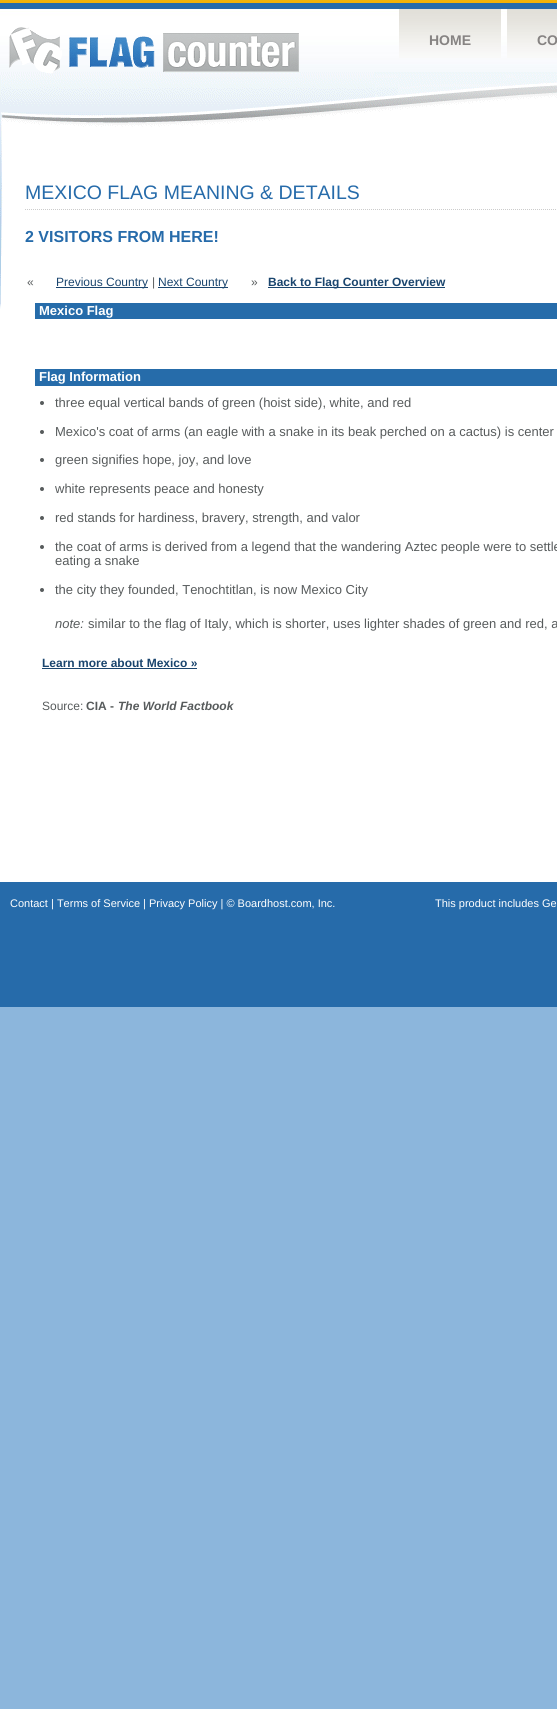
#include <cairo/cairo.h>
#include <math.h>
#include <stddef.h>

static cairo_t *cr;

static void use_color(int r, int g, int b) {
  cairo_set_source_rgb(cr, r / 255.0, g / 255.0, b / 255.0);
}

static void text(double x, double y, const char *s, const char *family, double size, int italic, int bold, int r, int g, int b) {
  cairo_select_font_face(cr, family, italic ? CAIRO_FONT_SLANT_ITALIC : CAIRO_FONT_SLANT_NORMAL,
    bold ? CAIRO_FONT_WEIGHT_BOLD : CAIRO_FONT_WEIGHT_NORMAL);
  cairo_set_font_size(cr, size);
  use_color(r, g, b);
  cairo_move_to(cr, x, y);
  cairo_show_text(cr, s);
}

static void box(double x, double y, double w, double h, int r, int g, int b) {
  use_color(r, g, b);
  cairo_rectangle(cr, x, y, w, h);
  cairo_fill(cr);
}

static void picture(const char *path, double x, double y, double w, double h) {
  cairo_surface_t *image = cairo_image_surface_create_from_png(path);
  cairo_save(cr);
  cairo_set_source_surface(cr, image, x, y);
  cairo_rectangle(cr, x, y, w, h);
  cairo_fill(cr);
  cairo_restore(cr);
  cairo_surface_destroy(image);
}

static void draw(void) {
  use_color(140, 182, 220);
  cairo_paint(cr);
  picture("img_01.png", 0, 0, 557, 72);
  picture("img_02.png", 9, 27, 290, 45);
  picture("img_03.png", 399, 9, 102, 49);
  picture("img_04.png", 507, 9, 50, 49);
  box(0, 309, 557, 573, 255, 255, 255);
  picture("img_05.png", 0, 72, 557, 237);
  cairo_new_path(cr);
  cairo_move_to(cr, 25, 209.5);
  cairo_line_to(cr, 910, 209.5);
  use_color(204, 204, 204);
  cairo_set_line_width(cr, 1);
  cairo_set_dash(cr, (double[]){1, 1}, 2, 0);
  cairo_stroke(cr);
  box(56, 287, 92, 1, 26, 69, 110);
  box(158, 287, 70, 1, 26, 69, 110);
  box(268, 287, 177, 1, 26, 69, 110);
  box(35, 303, 522, 16, 38, 108, 170);
  box(35, 369, 522, 17, 38, 108, 170);
  use_color(87, 91, 92);
  cairo_arc(cr, 42, 403, 2, 0, 2 * M_PI);
  cairo_fill(cr);
  cairo_arc(cr, 42, 432, 2, 0, 2 * M_PI);
  cairo_fill(cr);
  cairo_arc(cr, 42, 460, 2, 0, 2 * M_PI);
  cairo_fill(cr);
  cairo_arc(cr, 42, 489, 2, 0, 2 * M_PI);
  cairo_fill(cr);
  cairo_arc(cr, 42, 518, 2, 0, 2 * M_PI);
  cairo_fill(cr);
  cairo_arc(cr, 42, 547, 2, 0, 2 * M_PI);
  cairo_fill(cr);
  cairo_arc(cr, 42, 590, 2, 0, 2 * M_PI);
  cairo_fill(cr);
  box(42, 668, 155, 1, 26, 69, 110);
  box(0, 882, 557, 125, 38, 107, 170);
  text(429, 45, "HOME", "Liberation Sans", 14, 0, 1, 134, 131, 130);
  text(537, 45, "CO", "Liberation Sans", 14, 0, 1, 134, 131, 130);
  text(25, 199, "MEXICO FLAG MEANING & DETAILS", "Liberation Sans", 19.5, 0, 0, 38, 107, 170);
  text(25, 242, "2 VISITORS FROM HERE!", "Liberation Sans", 16, 0, 1, 38, 107, 170);
  text(27, 286, "«", "Liberation Sans", 12, 0, 0, 87, 91, 92);
  text(56, 286, "Previous Country", "Liberation Sans", 12, 0, 0, 26, 69, 110);
  text(152, 286, "|", "Liberation Sans", 12, 0, 0, 87, 91, 92);
  text(158, 286, "Next Country", "Liberation Sans", 12, 0, 0, 26, 69, 110);
  text(251, 286, "»", "Liberation Sans", 12, 0, 0, 87, 91, 92);
  text(268, 286, "Back to Flag Counter Overview", "Liberation Sans", 12, 0, 1, 26, 69, 110);
  text(39, 315, "Mexico Flag", "Liberation Sans", 13, 0, 1, 255, 255, 255);
  text(39, 381, "Flag Information", "Liberation Sans", 13, 0, 1, 255, 255, 255);
  text(55, 407, "three equal vertical bands of green (hoist side), white, and red", "Liberation Sans", 13, 0, 0, 87, 91, 92);
  text(55, 436, "Mexico's coat of arms (an eagle with a snake in its beak perched on a cactus) is center", "Liberation Sans", 13, 0, 0, 87, 91, 92);
  text(55, 464, "green signifies hope, joy, and love", "Liberation Sans", 13, 0, 0, 87, 91, 92);
  text(55, 493, "white represents peace and honesty", "Liberation Sans", 13, 0, 0, 87, 91, 92);
  text(55, 522, "red stands for hardiness, bravery, strength, and valor", "Liberation Sans", 13, 0, 0, 87, 91, 92);
  text(55, 551, "the coat of arms is derived from a legend that the wandering Aztec people were to settle", "Liberation Sans", 13, 0, 0, 87, 91, 92);
  text(55, 565, "eating a snake", "Liberation Sans", 13, 0, 0, 87, 91, 92);
  text(55, 594, "the city they founded, Tenochtitlan, is now Mexico City", "Liberation Sans", 13, 0, 0, 87, 91, 92);
  text(55, 628, "note:", "Liberation Sans", 13, 1, 0, 87, 91, 92);
  text(88, 628, "similar to the flag of Italy, which is shorter, uses lighter shades of green and red, a", "Liberation Sans", 13, 0, 0, 87, 91, 92);
  text(42, 667, "Learn more about Mexico »", "Liberation Sans", 12, 0, 1, 26, 69, 110);
  text(42, 710, "Source:", "Liberation Sans", 12, 0, 0, 87, 91, 92);
  text(86, 710, "CIA -", "Liberation Sans", 12, 0, 1, 87, 91, 92);
  text(118, 710, "The World Factbook", "Liberation Sans", 12, 1, 1, 87, 91, 92);
  text(10, 907, "Contact | Terms of Service | Privacy Policy | © Boardhost.com, Inc.", "Liberation Sans", 11, 0, 0, 255, 255, 255);
  text(435, 907, "This product includes Ge", "Liberation Sans", 11, 0, 0, 255, 255, 255);
}

int main(void) {
  cairo_surface_t *surface = cairo_image_surface_create(CAIRO_FORMAT_RGB24, 557, 1709);
  cr = cairo_create(surface);
  cairo_font_options_t *options = cairo_font_options_create();
  cairo_font_options_set_hint_metrics(options, CAIRO_HINT_METRICS_OFF);
  cairo_font_options_set_hint_style(options, CAIRO_HINT_STYLE_NONE);
  cairo_set_font_options(cr, options);
  cairo_set_miter_limit(cr, 4);
  draw();
  cairo_surface_write_to_png(surface, "out.png");
  cairo_font_options_destroy(options);
  cairo_destroy(cr);
  cairo_surface_destroy(surface);
  return 0;
}
